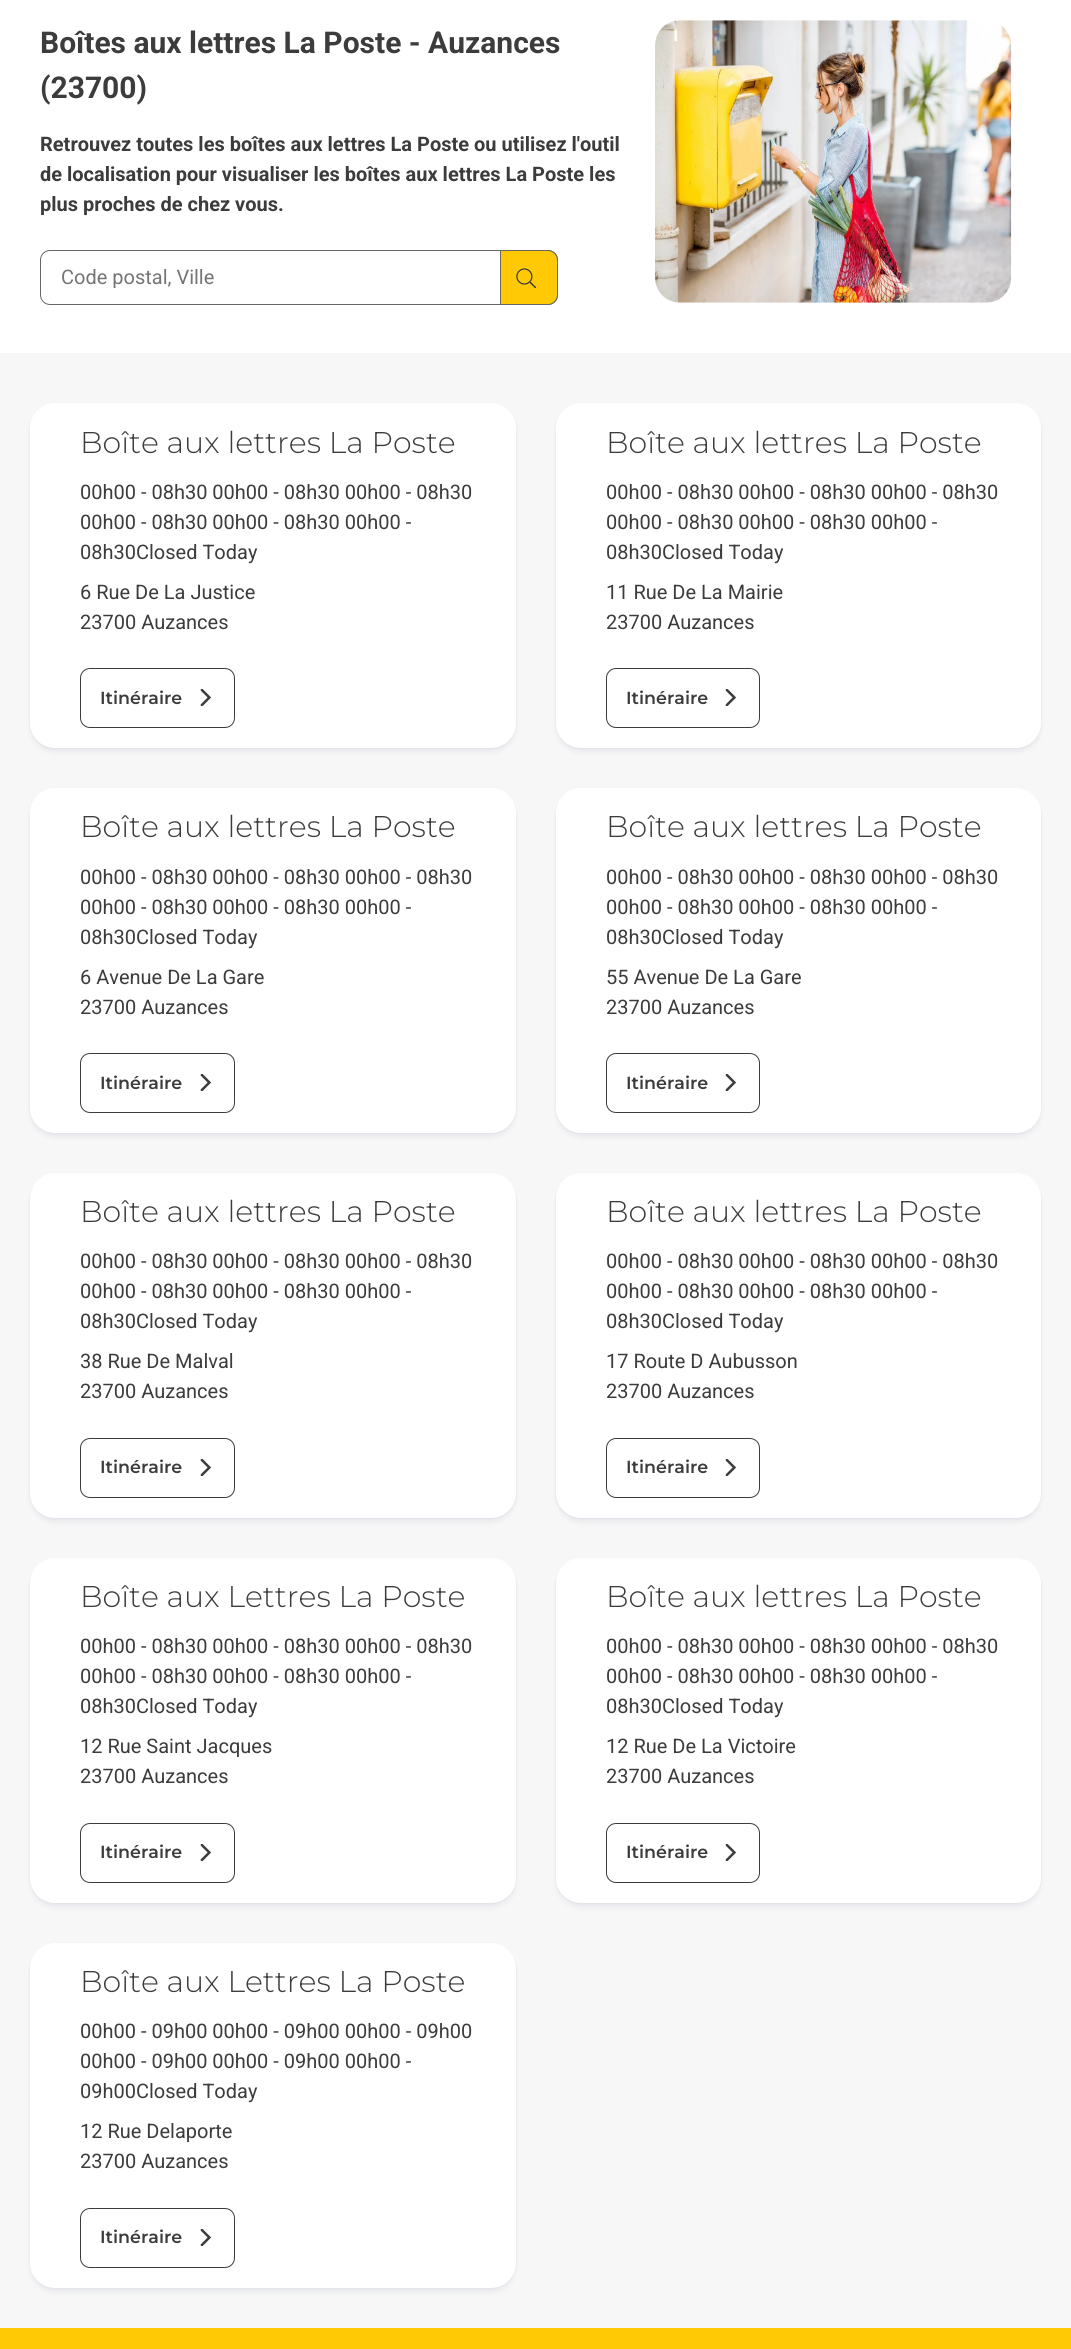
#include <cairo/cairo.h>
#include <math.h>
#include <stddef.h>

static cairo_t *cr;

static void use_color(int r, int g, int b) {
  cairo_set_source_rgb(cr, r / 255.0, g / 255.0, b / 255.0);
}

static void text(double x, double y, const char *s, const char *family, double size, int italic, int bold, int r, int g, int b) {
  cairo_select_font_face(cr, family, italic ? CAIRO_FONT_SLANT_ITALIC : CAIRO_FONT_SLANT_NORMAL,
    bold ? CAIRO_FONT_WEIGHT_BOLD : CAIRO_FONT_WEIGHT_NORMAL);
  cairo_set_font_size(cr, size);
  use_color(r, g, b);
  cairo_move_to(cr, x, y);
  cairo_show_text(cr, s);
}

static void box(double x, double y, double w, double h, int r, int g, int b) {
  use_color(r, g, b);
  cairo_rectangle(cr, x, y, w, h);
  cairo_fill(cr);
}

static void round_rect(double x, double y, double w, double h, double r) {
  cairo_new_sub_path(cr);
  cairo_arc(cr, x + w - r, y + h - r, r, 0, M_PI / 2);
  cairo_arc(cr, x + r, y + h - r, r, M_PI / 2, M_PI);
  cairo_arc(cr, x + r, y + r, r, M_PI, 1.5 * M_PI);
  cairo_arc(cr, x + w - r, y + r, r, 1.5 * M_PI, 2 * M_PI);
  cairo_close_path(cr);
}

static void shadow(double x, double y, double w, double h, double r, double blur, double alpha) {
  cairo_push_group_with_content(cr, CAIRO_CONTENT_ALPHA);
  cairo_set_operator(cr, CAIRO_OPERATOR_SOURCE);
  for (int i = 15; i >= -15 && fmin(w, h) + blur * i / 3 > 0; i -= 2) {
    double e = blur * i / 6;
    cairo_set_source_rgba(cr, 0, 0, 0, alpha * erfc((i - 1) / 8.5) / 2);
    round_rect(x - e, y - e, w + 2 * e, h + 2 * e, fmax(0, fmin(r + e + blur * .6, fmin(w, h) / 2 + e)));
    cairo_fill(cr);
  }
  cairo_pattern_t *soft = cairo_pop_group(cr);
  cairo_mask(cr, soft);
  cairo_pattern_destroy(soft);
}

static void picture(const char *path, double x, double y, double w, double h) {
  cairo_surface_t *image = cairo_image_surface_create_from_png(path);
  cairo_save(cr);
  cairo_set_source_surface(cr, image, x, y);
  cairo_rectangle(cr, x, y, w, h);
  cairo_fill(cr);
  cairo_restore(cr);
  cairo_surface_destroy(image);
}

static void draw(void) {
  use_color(255, 255, 255);
  cairo_paint(cr);
  round_rect(40.5, 250.5, 517, 54, 9.5);
  use_color(102, 102, 102);
  cairo_set_line_width(cr, 1);
  cairo_stroke(cr);
  use_color(255, 201, 5);
  cairo_new_path(cr);
  cairo_move_to(cr, 500.5, 250.5);
  cairo_line_to(cr, 548, 250.5);
  cairo_curve_to(cr, 553, 250.5, 557.5, 255, 557.5, 260);
  cairo_line_to(cr, 557.5, 295);
  cairo_curve_to(cr, 557.5, 300, 553, 304.5, 548, 304.5);
  cairo_line_to(cr, 500.5, 304.5);
  cairo_close_path(cr);
  cairo_fill_preserve(cr);
  use_color(102, 102, 102);
  cairo_stroke(cr);
  picture("img_01.png", 516, 268, 20, 20);
  picture("img_02.png", 655, 20, 357, 283);
  box(0, 353, 1071, 1975, 247, 247, 247);
  use_color(103, 110, 144);
  shadow(30, 404, 486, 345, 25, 1, 0.1);
  shadow(30, 408, 486, 345, 25, 2.5, 0.08);
  use_color(255, 255, 255);
  round_rect(30, 403, 486, 345, 25);
  cairo_fill(cr);
  round_rect(80.5, 668.5, 154, 59, 9.5);
  use_color(60, 60, 60);
  cairo_stroke(cr);
  picture("img_03.png", 200, 689, 12, 17);
  use_color(103, 110, 144);
  shadow(556, 404, 485, 345, 25, 1, 0.1);
  shadow(556, 408, 485, 345, 25, 2.5, 0.08);
  use_color(255, 255, 255);
  round_rect(556, 403, 485, 345, 25);
  cairo_fill(cr);
  round_rect(606.5, 668.5, 153, 59, 9.5);
  use_color(60, 60, 60);
  cairo_stroke(cr);
  picture("img_03.png", 725, 689, 12, 17);
  use_color(103, 110, 144);
  shadow(30, 789, 486, 345, 25, 1, 0.1);
  shadow(30, 793, 486, 345, 25, 2.5, 0.08);
  use_color(255, 255, 255);
  round_rect(30, 788, 486, 345, 25);
  cairo_fill(cr);
  round_rect(80.5, 1053.5, 154, 59, 9.5);
  use_color(60, 60, 60);
  cairo_stroke(cr);
  picture("img_03.png", 200, 1074, 12, 17);
  use_color(103, 110, 144);
  shadow(556, 789, 485, 345, 25, 1, 0.1);
  shadow(556, 793, 485, 345, 25, 2.5, 0.08);
  use_color(255, 255, 255);
  round_rect(556, 788, 485, 345, 25);
  cairo_fill(cr);
  round_rect(606.5, 1053.5, 153, 59, 9.5);
  use_color(60, 60, 60);
  cairo_stroke(cr);
  picture("img_03.png", 725, 1074, 12, 17);
  use_color(103, 110, 144);
  shadow(30, 1174, 486, 345, 25, 1, 0.1);
  shadow(30, 1178, 486, 345, 25, 2.5, 0.08);
  use_color(255, 255, 255);
  round_rect(30, 1173, 486, 345, 25);
  cairo_fill(cr);
  round_rect(80.5, 1438.5, 154, 59, 9.5);
  use_color(60, 60, 60);
  cairo_stroke(cr);
  picture("img_03.png", 200, 1459, 12, 17);
  use_color(103, 110, 144);
  shadow(556, 1174, 485, 345, 25, 1, 0.1);
  shadow(556, 1178, 485, 345, 25, 2.5, 0.08);
  use_color(255, 255, 255);
  round_rect(556, 1173, 485, 345, 25);
  cairo_fill(cr);
  round_rect(606.5, 1438.5, 153, 59, 9.5);
  use_color(60, 60, 60);
  cairo_stroke(cr);
  picture("img_03.png", 725, 1459, 12, 17);
  use_color(103, 110, 144);
  shadow(30, 1559, 486, 345, 25, 1, 0.1);
  shadow(30, 1563, 486, 345, 25, 2.5, 0.08);
  use_color(255, 255, 255);
  round_rect(30, 1558, 486, 345, 25);
  cairo_fill(cr);
  round_rect(80.5, 1823.5, 154, 59, 9.5);
  use_color(60, 60, 60);
  cairo_stroke(cr);
  picture("img_03.png", 200, 1844, 12, 17);
  use_color(103, 110, 144);
  shadow(556, 1559, 485, 345, 25, 1, 0.1);
  shadow(556, 1563, 485, 345, 25, 2.5, 0.08);
  use_color(255, 255, 255);
  round_rect(556, 1558, 485, 345, 25);
  cairo_fill(cr);
  round_rect(606.5, 1823.5, 153, 59, 9.5);
  use_color(60, 60, 60);
  cairo_stroke(cr);
  picture("img_03.png", 725, 1844, 12, 17);
  use_color(103, 110, 144);
  shadow(30, 1944, 486, 345, 25, 1, 0.1);
  shadow(30, 1948, 486, 345, 25, 2.5, 0.08);
  use_color(255, 255, 255);
  round_rect(30, 1943, 486, 345, 25);
  cairo_fill(cr);
  round_rect(80.5, 2208.5, 154, 59, 9.5);
  use_color(60, 60, 60);
  cairo_stroke(cr);
  picture("img_03.png", 200, 2229, 12, 17);
  box(0, 2328, 1071, 21, 255, 201, 5);
  text(40, 53, "Boîtes aux lettres La Poste - Auzances", "Roboto", 30, 0, 1, 60, 60, 60);
  text(40, 98, "(23700)", "Roboto", 30, 0, 1, 60, 60, 60);
  text(40, 151, "Retrouvez toutes les boîtes aux lettres La Poste ou utilisez l'outil", "Roboto", 20, 0, 1, 60, 60, 60);
  text(40, 181, "de localisation pour visualiser les boîtes aux lettres La Poste les", "Roboto", 20, 0, 1, 60, 60, 60);
  text(40, 211, "plus proches de chez vous.", "Roboto", 20, 0, 1, 60, 60, 60);
  text(61, 284, "Code postal, Ville", "Roboto", 20, 0, 0, 117, 117, 117);
  text(80, 453, "Boîte aux lettres La Poste", "Montserrat Light", 30, 0, 0, 60, 60, 60);
  text(80, 499, "00h00 - 08h30 00h00 - 08h30 00h00 - 08h30", "Roboto", 20, 0, 0, 60, 60, 60);
  text(80, 529, "00h00 - 08h30 00h00 - 08h30 00h00 -", "Roboto", 20, 0, 0, 60, 60, 60);
  text(80, 559, "08h30Closed Today", "Roboto", 20, 0, 0, 60, 60, 60);
  text(80, 599, "6 Rue De La Justice", "Roboto", 20, 0, 0, 60, 60, 60);
  text(80, 629, "23700 Auzances", "Roboto", 20, 0, 0, 60, 60, 60);
  text(100, 704, "Itinéraire", "Montserrat SemiBold", 17.5, 0, 0, 60, 60, 60);
  text(606, 453, "Boîte aux lettres La Poste", "Montserrat Light", 30, 0, 0, 60, 60, 60);
  text(606, 499, "00h00 - 08h30 00h00 - 08h30 00h00 - 08h30", "Roboto", 20, 0, 0, 60, 60, 60);
  text(606, 529, "00h00 - 08h30 00h00 - 08h30 00h00 -", "Roboto", 20, 0, 0, 60, 60, 60);
  text(606, 559, "08h30Closed Today", "Roboto", 20, 0, 0, 60, 60, 60);
  text(606, 599, "11 Rue De La Mairie", "Roboto", 20, 0, 0, 60, 60, 60);
  text(606, 629, "23700 Auzances", "Roboto", 20, 0, 0, 60, 60, 60);
  text(626, 704, "Itinéraire", "Montserrat SemiBold", 17.5, 0, 0, 60, 60, 60);
  text(80, 837, "Boîte aux lettres La Poste", "Montserrat Light", 30, 0, 0, 60, 60, 60);
  text(80, 884, "00h00 - 08h30 00h00 - 08h30 00h00 - 08h30", "Roboto", 20, 0, 0, 60, 60, 60);
  text(80, 914, "00h00 - 08h30 00h00 - 08h30 00h00 -", "Roboto", 20, 0, 0, 60, 60, 60);
  text(80, 944, "08h30Closed Today", "Roboto", 20, 0, 0, 60, 60, 60);
  text(80, 984, "6 Avenue De La Gare", "Roboto", 20, 0, 0, 60, 60, 60);
  text(80, 1014, "23700 Auzances", "Roboto", 20, 0, 0, 60, 60, 60);
  text(100, 1089, "Itinéraire", "Montserrat SemiBold", 17.5, 0, 0, 60, 60, 60);
  text(606, 837, "Boîte aux lettres La Poste", "Montserrat Light", 30, 0, 0, 60, 60, 60);
  text(606, 884, "00h00 - 08h30 00h00 - 08h30 00h00 - 08h30", "Roboto", 20, 0, 0, 60, 60, 60);
  text(606, 914, "00h00 - 08h30 00h00 - 08h30 00h00 -", "Roboto", 20, 0, 0, 60, 60, 60);
  text(606, 944, "08h30Closed Today", "Roboto", 20, 0, 0, 60, 60, 60);
  text(606, 984, "55 Avenue De La Gare", "Roboto", 20, 0, 0, 60, 60, 60);
  text(606, 1014, "23700 Auzances", "Roboto", 20, 0, 0, 60, 60, 60);
  text(626, 1089, "Itinéraire", "Montserrat SemiBold", 17.5, 0, 0, 60, 60, 60);
  text(80, 1222, "Boîte aux lettres La Poste", "Montserrat Light", 30, 0, 0, 60, 60, 60);
  text(80, 1268, "00h00 - 08h30 00h00 - 08h30 00h00 - 08h30", "Roboto", 20, 0, 0, 60, 60, 60);
  text(80, 1298, "00h00 - 08h30 00h00 - 08h30 00h00 -", "Roboto", 20, 0, 0, 60, 60, 60);
  text(80, 1328, "08h30Closed Today", "Roboto", 20, 0, 0, 60, 60, 60);
  text(80, 1368, "38 Rue De Malval", "Roboto", 20, 0, 0, 60, 60, 60);
  text(80, 1398, "23700 Auzances", "Roboto", 20, 0, 0, 60, 60, 60);
  text(100, 1473, "Itinéraire", "Montserrat SemiBold", 17.5, 0, 0, 60, 60, 60);
  text(606, 1222, "Boîte aux lettres La Poste", "Montserrat Light", 30, 0, 0, 60, 60, 60);
  text(606, 1268, "00h00 - 08h30 00h00 - 08h30 00h00 - 08h30", "Roboto", 20, 0, 0, 60, 60, 60);
  text(606, 1298, "00h00 - 08h30 00h00 - 08h30 00h00 -", "Roboto", 20, 0, 0, 60, 60, 60);
  text(606, 1328, "08h30Closed Today", "Roboto", 20, 0, 0, 60, 60, 60);
  text(606, 1368, "17 Route D Aubusson", "Roboto", 20, 0, 0, 60, 60, 60);
  text(606, 1398, "23700 Auzances", "Roboto", 20, 0, 0, 60, 60, 60);
  text(626, 1473, "Itinéraire", "Montserrat SemiBold", 17.5, 0, 0, 60, 60, 60);
  text(80, 1607, "Boîte aux Lettres La Poste", "Montserrat Light", 30, 0, 0, 60, 60, 60);
  text(80, 1653, "00h00 - 08h30 00h00 - 08h30 00h00 - 08h30", "Roboto", 20, 0, 0, 60, 60, 60);
  text(80, 1683, "00h00 - 08h30 00h00 - 08h30 00h00 -", "Roboto", 20, 0, 0, 60, 60, 60);
  text(80, 1713, "08h30Closed Today", "Roboto", 20, 0, 0, 60, 60, 60);
  text(80, 1753, "12 Rue Saint Jacques", "Roboto", 20, 0, 0, 60, 60, 60);
  text(80, 1783, "23700 Auzances", "Roboto", 20, 0, 0, 60, 60, 60);
  text(100, 1858, "Itinéraire", "Montserrat SemiBold", 17.5, 0, 0, 60, 60, 60);
  text(606, 1607, "Boîte aux lettres La Poste", "Montserrat Light", 30, 0, 0, 60, 60, 60);
  text(606, 1653, "00h00 - 08h30 00h00 - 08h30 00h00 - 08h30", "Roboto", 20, 0, 0, 60, 60, 60);
  text(606, 1683, "00h00 - 08h30 00h00 - 08h30 00h00 -", "Roboto", 20, 0, 0, 60, 60, 60);
  text(606, 1713, "08h30Closed Today", "Roboto", 20, 0, 0, 60, 60, 60);
  text(606, 1753, "12 Rue De La Victoire", "Roboto", 20, 0, 0, 60, 60, 60);
  text(606, 1783, "23700 Auzances", "Roboto", 20, 0, 0, 60, 60, 60);
  text(626, 1858, "Itinéraire", "Montserrat SemiBold", 17.5, 0, 0, 60, 60, 60);
  text(80, 1992, "Boîte aux Lettres La Poste", "Montserrat Light", 30, 0, 0, 60, 60, 60);
  text(80, 2038, "00h00 - 09h00 00h00 - 09h00 00h00 - 09h00", "Roboto", 20, 0, 0, 60, 60, 60);
  text(80, 2068, "00h00 - 09h00 00h00 - 09h00 00h00 -", "Roboto", 20, 0, 0, 60, 60, 60);
  text(80, 2098, "09h00Closed Today", "Roboto", 20, 0, 0, 60, 60, 60);
  text(80, 2138, "12 Rue Delaporte", "Roboto", 20, 0, 0, 60, 60, 60);
  text(80, 2168, "23700 Auzances", "Roboto", 20, 0, 0, 60, 60, 60);
  text(100, 2243, "Itinéraire", "Montserrat SemiBold", 17.5, 0, 0, 60, 60, 60);
}

int main(void) {
  cairo_surface_t *surface = cairo_image_surface_create(CAIRO_FORMAT_RGB24, 1071, 2349);
  cr = cairo_create(surface);
  cairo_font_options_t *options = cairo_font_options_create();
  cairo_font_options_set_hint_metrics(options, CAIRO_HINT_METRICS_OFF);
  cairo_font_options_set_hint_style(options, CAIRO_HINT_STYLE_NONE);
  cairo_set_font_options(cr, options);
  cairo_set_miter_limit(cr, 4);
  draw();
  cairo_surface_write_to_png(surface, "out.png");
  cairo_font_options_destroy(options);
  cairo_destroy(cr);
  cairo_surface_destroy(surface);
  return 0;
}
